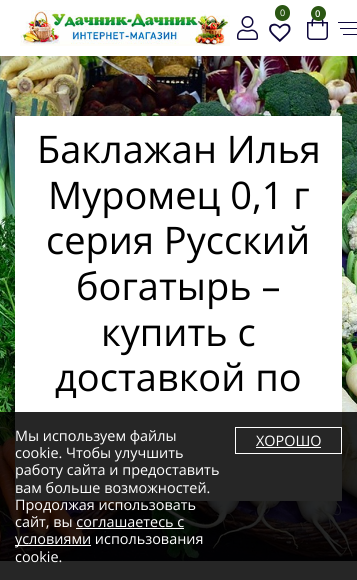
#include <cairo/cairo.h>
#include <math.h>
#include <stddef.h>

static cairo_t *cr;

static void use_color(int r, int g, int b) {
  cairo_set_source_rgb(cr, r / 255.0, g / 255.0, b / 255.0);
}

static void text(double x, double y, const char *s, const char *family, double size, int italic, int bold, int r, int g, int b) {
  cairo_select_font_face(cr, family, italic ? CAIRO_FONT_SLANT_ITALIC : CAIRO_FONT_SLANT_NORMAL,
    bold ? CAIRO_FONT_WEIGHT_BOLD : CAIRO_FONT_WEIGHT_NORMAL);
  cairo_set_font_size(cr, size);
  use_color(r, g, b);
  cairo_move_to(cr, x, y);
  cairo_show_text(cr, s);
}

static void box(double x, double y, double w, double h, int r, int g, int b) {
  use_color(r, g, b);
  cairo_rectangle(cr, x, y, w, h);
  cairo_fill(cr);
}

static void round_rect(double x, double y, double w, double h, double r) {
  cairo_new_sub_path(cr);
  cairo_arc(cr, x + w - r, y + h - r, r, 0, M_PI / 2);
  cairo_arc(cr, x + r, y + h - r, r, M_PI / 2, M_PI);
  cairo_arc(cr, x + r, y + r, r, M_PI, 1.5 * M_PI);
  cairo_arc(cr, x + w - r, y + r, r, 1.5 * M_PI, 2 * M_PI);
  cairo_close_path(cr);
}

static void picture(const char *path, double x, double y, double w, double h) {
  cairo_surface_t *image = cairo_image_surface_create_from_png(path);
  cairo_save(cr);
  cairo_set_source_surface(cr, image, x, y);
  cairo_rectangle(cr, x, y, w, h);
  cairo_fill(cr);
  cairo_restore(cr);
  cairo_surface_destroy(image);
}

static void draw(void) {
  use_color(255, 255, 255);
  cairo_paint(cr);
  picture("img_01.png", 20, 10, 210, 36);
  use_color(42, 86, 18);
  round_rect(275, 5, 15, 16, 7.5);
  cairo_fill(cr);
  picture("img_02.png", 269, 23, 22, 19);
  picture("img_03.png", 307, 18, 21, 22);
  cairo_arc(cr, 318.5, 13.5, 7.5, 0, 2 * M_PI);
  cairo_fill(cr);
  picture("img_04.png", 237, 16, 21, 24);
  box(338, 22, 19, 1, 14, 7, 60);
  box(340, 28, 17, 1, 14, 7, 60);
  box(343, 34, 14, 1, 14, 7, 60);
  picture("img_05.png", 0, 56, 357, 505);
  box(15, 116, 327, 385, 255, 255, 255);
  cairo_set_source_rgba(cr, 0.004, 0.004, 0.004, 0.85);
  cairo_rectangle(cr, 0, 412, 357, 168);
  cairo_fill(cr);
  box(76, 528, 108, 1, 255, 255, 255);
  box(15, 545, 76, 1, 255, 255, 255);
  cairo_rectangle(cr, 235.5, 427.5, 106, 26);
  cairo_set_line_width(cr, 1);
  cairo_stroke(cr);
  box(256, 447, 65, 1, 255, 255, 255);
  text(280, 16, "0", "Open Sans", 9, 0, 0, 255, 255, 255);
  text(315, 17, "0", "Open Sans", 9, 0, 1, 255, 255, 255);
  text(37, 163, "Баклажан Илья", "Open Sans", 38, 0, 0, 0, 0, 0);
  text(48, 209, "Муромец 0,1 г", "Open Sans", 38, 0, 0, 0, 0, 0);
  text(46, 254, "серия Русский", "Open Sans", 38, 0, 0, 0, 0, 0);
  text(76, 300, "богатырь –", "Open Sans", 38, 0, 0, 0, 0, 0);
  text(101, 346, "купить с", "Open Sans", 38, 0, 0, 0, 0, 0);
  text(55, 391, "доставкой по", "Open Sans", 38, 0, 0, 0, 0, 0);
  text(15, 441, "Мы используем файлы", "Open Sans", 14.4, 0, 0, 255, 255, 255);
  text(15, 458, "cookie. Чтобы улучшить", "Open Sans", 14.4, 0, 0, 255, 255, 255);
  text(15, 475, "работу сайта и предоставить", "Open Sans", 14.4, 0, 0, 255, 255, 255);
  text(15, 493, "вам больше возможностей.", "Open Sans", 14.4, 0, 0, 255, 255, 255);
  text(15, 510, "Продолжая использовать", "Open Sans", 14.4, 0, 0, 255, 255, 255);
  text(15, 527, "сайт, вы соглашаетесь с", "Open Sans", 14.4, 0, 0, 255, 255, 255);
  text(15, 544, "условиями использования", "Open Sans", 14.4, 0, 0, 255, 255, 255);
  text(15, 562, "cookie.", "Open Sans", 14.4, 0, 0, 255, 255, 255);
  text(256, 446, "ХОРОШО", "Open Sans", 14.4, 0, 0, 255, 255, 255);
}

int main(void) {
  cairo_surface_t *surface = cairo_image_surface_create(CAIRO_FORMAT_RGB24, 357, 580);
  cr = cairo_create(surface);
  cairo_font_options_t *options = cairo_font_options_create();
  cairo_font_options_set_hint_metrics(options, CAIRO_HINT_METRICS_OFF);
  cairo_font_options_set_hint_style(options, CAIRO_HINT_STYLE_NONE);
  cairo_set_font_options(cr, options);
  cairo_set_miter_limit(cr, 4);
  draw();
  cairo_surface_write_to_png(surface, "out.png");
  cairo_font_options_destroy(options);
  cairo_destroy(cr);
  cairo_surface_destroy(surface);
  return 0;
}
